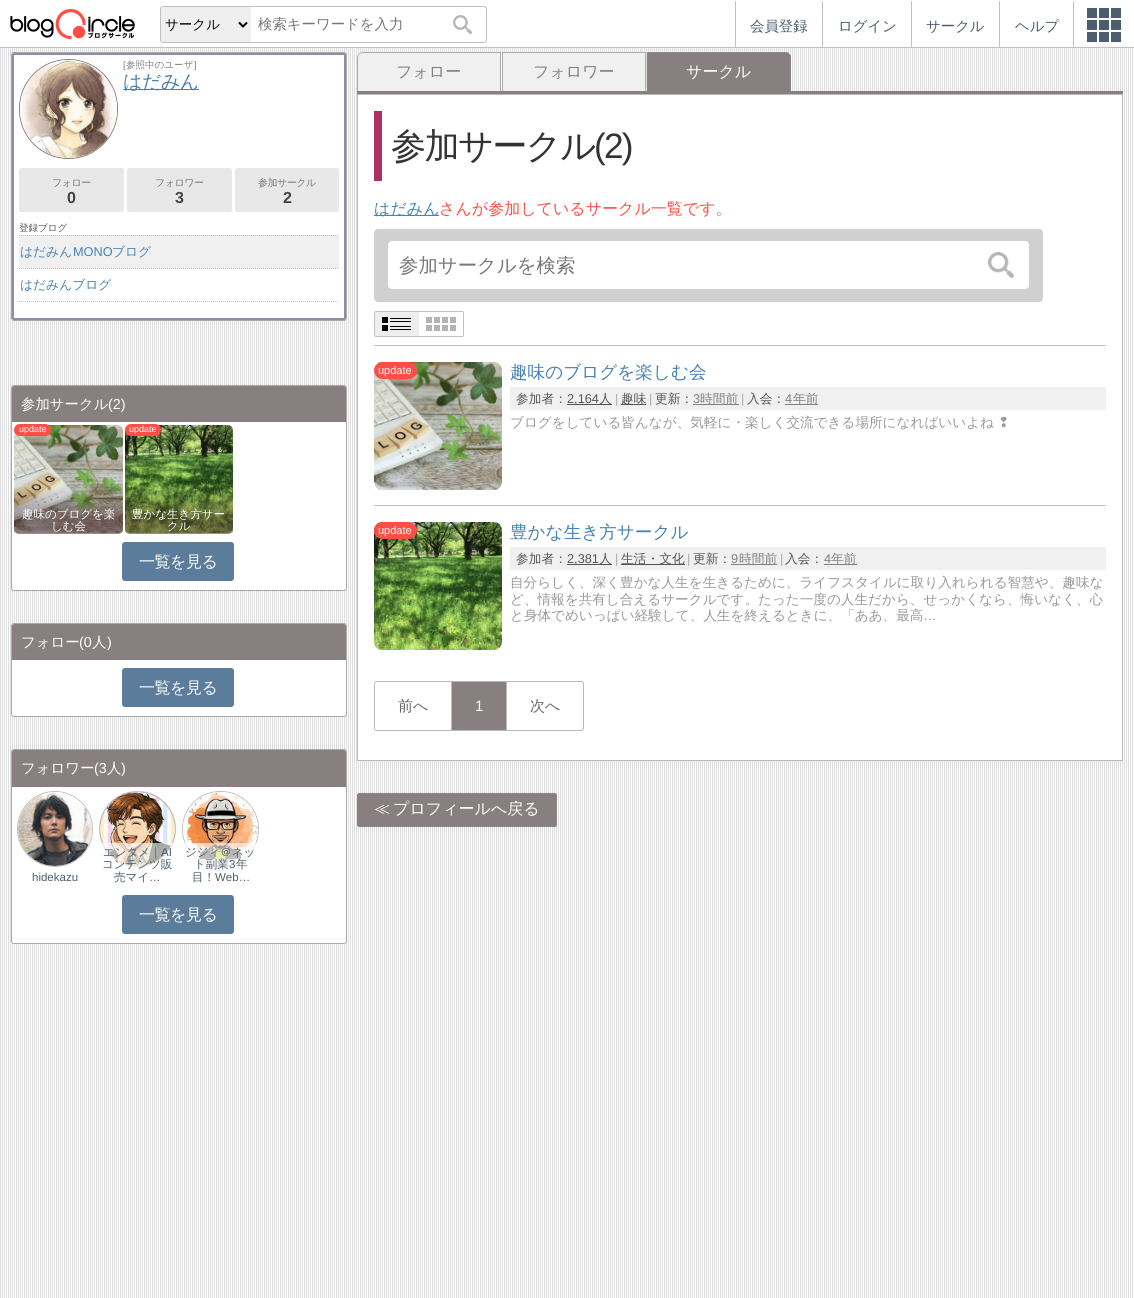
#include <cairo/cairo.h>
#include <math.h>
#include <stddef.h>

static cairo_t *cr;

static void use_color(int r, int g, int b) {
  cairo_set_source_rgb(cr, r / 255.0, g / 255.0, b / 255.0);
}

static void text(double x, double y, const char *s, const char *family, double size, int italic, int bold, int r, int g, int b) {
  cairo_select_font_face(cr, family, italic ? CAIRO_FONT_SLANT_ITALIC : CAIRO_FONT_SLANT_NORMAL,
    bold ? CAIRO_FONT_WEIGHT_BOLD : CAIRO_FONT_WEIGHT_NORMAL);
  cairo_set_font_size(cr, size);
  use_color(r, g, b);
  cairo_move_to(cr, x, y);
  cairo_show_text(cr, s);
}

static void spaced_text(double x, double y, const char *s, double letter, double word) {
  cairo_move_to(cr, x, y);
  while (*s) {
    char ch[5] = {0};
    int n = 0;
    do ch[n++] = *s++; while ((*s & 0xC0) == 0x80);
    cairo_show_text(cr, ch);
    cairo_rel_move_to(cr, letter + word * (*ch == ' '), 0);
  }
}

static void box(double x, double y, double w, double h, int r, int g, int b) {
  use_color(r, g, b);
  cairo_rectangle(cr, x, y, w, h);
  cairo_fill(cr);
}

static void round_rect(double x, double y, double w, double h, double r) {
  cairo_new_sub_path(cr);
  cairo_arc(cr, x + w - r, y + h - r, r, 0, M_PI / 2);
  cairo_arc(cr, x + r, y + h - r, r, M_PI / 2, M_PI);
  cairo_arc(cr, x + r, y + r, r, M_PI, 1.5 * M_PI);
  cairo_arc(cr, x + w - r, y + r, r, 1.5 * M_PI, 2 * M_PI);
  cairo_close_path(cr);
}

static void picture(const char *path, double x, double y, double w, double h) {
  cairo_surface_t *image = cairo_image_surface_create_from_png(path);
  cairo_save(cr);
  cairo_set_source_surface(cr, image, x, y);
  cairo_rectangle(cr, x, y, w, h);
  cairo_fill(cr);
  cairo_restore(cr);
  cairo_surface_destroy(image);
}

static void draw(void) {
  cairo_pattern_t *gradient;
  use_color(255, 255, 255);
  cairo_paint(cr);
  picture("img_01.png", 0, 48, 1134, 1250);
  box(0, 47, 1134, 1, 192, 192, 192);
  picture("img_02.png", 10, 9, 125, 30);
  round_rect(160.5, 6.5, 326, 36, 2.5);
  cairo_set_line_width(cr, 1);
  cairo_stroke(cr);
  use_color(239, 239, 239);
  cairo_new_path(cr);
  cairo_move_to(cr, 163, 7);
  cairo_line_to(cr, 251, 7);
  cairo_line_to(cr, 251, 42);
  cairo_line_to(cr, 163, 42);
  cairo_curve_to(cr, 162, 42, 161, 41, 161, 40);
  cairo_line_to(cr, 161, 9);
  cairo_curve_to(cr, 161, 8, 162, 7, 163, 7);
  cairo_close_path(cr);
  cairo_fill(cr);
  cairo_new_path(cr);
  cairo_move_to(cr, 239, 22.5);
  cairo_line_to(cr, 243, 26.5);
  cairo_line_to(cr, 247, 22.5);
  use_color(0, 0, 0);
  cairo_set_line_width(cr, 2);
  cairo_stroke(cr);
  picture("img_03.png", 453, 15, 19, 19);
  box(735, 1, 1, 46, 192, 192, 192);
  box(822, 1, 1, 46, 192, 192, 192);
  box(911, 1, 1, 46, 192, 192, 192);
  box(999, 1, 1, 46, 192, 192, 192);
  box(1073, 1, 1, 46, 192, 192, 192);
  box(1087, 8, 34, 10, 76, 94, 109);
  box(1109, 8, 2, 10, 255, 255, 255);
  box(1097, 8, 2, 10, 255, 255, 255);
  box(1087, 20, 34, 10, 76, 94, 109);
  box(1109, 20, 2, 10, 255, 255, 255);
  box(1097, 20, 2, 10, 255, 255, 255);
  box(1087, 32, 34, 10, 76, 94, 109);
  box(1109, 32, 2, 10, 255, 255, 255);
  box(1097, 32, 2, 10, 255, 255, 255);
  round_rect(11.5, 52.5, 335, 268, 2.5);
  cairo_fill_preserve(cr);
  use_color(170, 170, 170);
  cairo_set_line_width(cr, 1);
  cairo_stroke(cr);
  use_color(141, 141, 170);
  cairo_set_fill_rule(cr, CAIRO_FILL_RULE_EVEN_ODD);
  cairo_new_path(cr);
  cairo_move_to(cr, 14, 53);
  cairo_curve_to(cr, 13, 53, 12, 54, 12, 55);
  cairo_line_to(cr, 12, 318);
  cairo_curve_to(cr, 12, 319, 13, 320, 14, 320);
  cairo_line_to(cr, 344, 320);
  cairo_curve_to(cr, 345, 320, 346, 319, 346, 318);
  cairo_line_to(cr, 346, 55);
  cairo_curve_to(cr, 346, 54, 345, 53, 344, 53);
  cairo_close_path(cr);
  cairo_move_to(cr, 14, 55);
  cairo_line_to(cr, 14, 318);
  cairo_line_to(cr, 344, 318);
  cairo_line_to(cr, 344, 55);
  cairo_close_path(cr);
  cairo_fill(cr);
  round_rect(19.5, 59.5, 98, 99, 49);
  use_color(128, 128, 128);
  cairo_stroke(cr);
  picture("img_04.png", 20, 60, 97, 98);
  box(123, 89, 76, 1, 70, 130, 180);
  use_color(232, 232, 232);
  round_rect(19, 168, 105, 44, 2);
  cairo_fill(cr);
  round_rect(127, 168, 105, 44, 2);
  cairo_fill(cr);
  round_rect(235, 168, 104, 44, 2);
  cairo_fill(cr);
  cairo_new_path(cr);
  cairo_move_to(cr, 19, 301.5);
  cairo_line_to(cr, 339, 301.5);
  use_color(192, 192, 192);
  cairo_set_dash(cr, (double[]){1, 1}, 2, 0);
  cairo_stroke(cr);
  box(19, 235, 320, 33, 240, 240, 240);
  cairo_new_path(cr);
  cairo_move_to(cr, 19, 235.5);
  cairo_line_to(cr, 339, 235.5);
  use_color(192, 192, 192);
  cairo_stroke(cr);
  cairo_new_path(cr);
  cairo_move_to(cr, 19, 268.5);
  cairo_line_to(cr, 339, 268.5);
  cairo_stroke(cr);
  use_color(255, 255, 255);
  round_rect(11.5, 385.5, 335, 205, 2.5);
  cairo_fill_preserve(cr);
  use_color(170, 170, 170);
  cairo_set_dash(cr, NULL, 0, 0);
  cairo_stroke(cr);
  use_color(136, 128, 128);
  cairo_new_path(cr);
  cairo_move_to(cr, 14, 386);
  cairo_line_to(cr, 344, 386);
  cairo_curve_to(cr, 345, 386, 346, 387, 346, 388);
  cairo_line_to(cr, 346, 422);
  cairo_line_to(cr, 12, 422);
  cairo_line_to(cr, 12, 388);
  cairo_curve_to(cr, 12, 387, 13, 386, 14, 386);
  cairo_close_path(cr);
  cairo_fill(cr);
  picture("img_05.png", 14, 425, 109, 108);
  use_color(255, 79, 68);
  round_rect(14, 424, 37, 12, 6);
  cairo_fill(cr);
  cairo_save(cr);
  cairo_set_fill_rule(cr, CAIRO_FILL_RULE_WINDING);
  round_rect(13, 424, 111, 110, 6);
  cairo_clip(cr);
  gradient = cairo_pattern_create_linear(69, 486, 69, 534);
  cairo_pattern_add_color_stop_rgba(gradient, 0, 0.235, 0.118, 0.118, 0);
  cairo_pattern_add_color_stop_rgba(gradient, 0.7, 0.235, 0.118, 0.118, 0.5);
  cairo_set_source(cr, gradient);
  cairo_pattern_destroy(gradient);
  cairo_rectangle(cr, 14, 487, 109, 47);
  cairo_fill(cr);
  cairo_restore(cr);
  picture("img_06.png", 125, 425, 108, 108);
  round_rect(125, 424, 36, 12, 6);
  cairo_fill(cr);
  cairo_save(cr);
  cairo_set_fill_rule(cr, CAIRO_FILL_RULE_WINDING);
  round_rect(124, 424, 110, 110, 6);
  cairo_clip(cr);
  gradient = cairo_pattern_create_linear(179, 486, 179, 534);
  cairo_pattern_add_color_stop_rgba(gradient, 0, 0.235, 0.118, 0.118, 0);
  cairo_pattern_add_color_stop_rgba(gradient, 0.7, 0.235, 0.118, 0.118, 0.5);
  cairo_set_source(cr, gradient);
  cairo_pattern_destroy(gradient);
  cairo_rectangle(cr, 125, 487, 108, 47);
  cairo_fill(cr);
  cairo_restore(cr);
  use_color(91, 124, 154);
  round_rect(122, 542, 112, 39, 3);
  cairo_fill(cr);
  use_color(255, 255, 255);
  round_rect(11.5, 623.5, 335, 93, 2.5);
  cairo_fill_preserve(cr);
  use_color(170, 170, 170);
  cairo_stroke(cr);
  use_color(136, 128, 128);
  cairo_new_path(cr);
  cairo_move_to(cr, 14, 624);
  cairo_line_to(cr, 344, 624);
  cairo_curve_to(cr, 345, 624, 346, 625, 346, 626);
  cairo_line_to(cr, 346, 660);
  cairo_line_to(cr, 12, 660);
  cairo_line_to(cr, 12, 626);
  cairo_curve_to(cr, 12, 625, 13, 624, 14, 624);
  cairo_close_path(cr);
  cairo_fill(cr);
  use_color(91, 124, 154);
  round_rect(122, 668, 112, 39, 3);
  cairo_fill(cr);
  use_color(255, 255, 255);
  round_rect(11.5, 749.5, 335, 194, 2.5);
  cairo_fill_preserve(cr);
  use_color(170, 170, 170);
  cairo_stroke(cr);
  use_color(136, 128, 128);
  cairo_new_path(cr);
  cairo_move_to(cr, 14, 750);
  cairo_line_to(cr, 344, 750);
  cairo_curve_to(cr, 345, 750, 346, 751, 346, 752);
  cairo_line_to(cr, 346, 787);
  cairo_line_to(cr, 12, 787);
  cairo_line_to(cr, 12, 752);
  cairo_curve_to(cr, 12, 751, 13, 750, 14, 750);
  cairo_close_path(cr);
  cairo_fill(cr);
  cairo_arc(cr, 55, 829, 37.5, 0, 2 * M_PI);
  use_color(192, 192, 192);
  cairo_stroke(cr);
  picture("img_07.png", 18, 792, 74, 74);
  round_rect(99.5, 791.5, 76, 75, 37.5);
  cairo_stroke(cr);
  picture("img_08.png", 100, 792, 75, 74);
  cairo_set_source_rgba(cr, 1, 1, 1, 0.6);
  cairo_rectangle(cr, 101, 843, 73, 24);
  cairo_fill(cr);
  round_rect(182.5, 791.5, 76, 75, 37.5);
  use_color(192, 192, 192);
  cairo_stroke(cr);
  picture("img_09.png", 183, 792, 75, 74);
  cairo_set_source_rgba(cr, 1, 1, 1, 0.6);
  cairo_rectangle(cr, 184, 843, 73, 24);
  cairo_fill(cr);
  use_color(91, 124, 154);
  round_rect(122, 895, 112, 39, 3);
  cairo_fill(cr);
  box(357, 91, 766, 3, 136, 128, 128);
  use_color(240, 240, 240);
  cairo_new_path(cr);
  cairo_move_to(cr, 363, 52);
  cairo_line_to(cr, 501, 52);
  cairo_line_to(cr, 501, 91);
  cairo_line_to(cr, 357, 91);
  cairo_line_to(cr, 357, 58);
  cairo_curve_to(cr, 357, 54.5, 359.5, 52, 363, 52);
  cairo_close_path(cr);
  cairo_fill(cr);
  use_color(170, 170, 170);
  cairo_new_path(cr);
  cairo_move_to(cr, 363, 52);
  cairo_line_to(cr, 501, 52);
  cairo_line_to(cr, 501, 91);
  cairo_line_to(cr, 357, 91);
  cairo_line_to(cr, 357, 58);
  cairo_curve_to(cr, 357, 55, 360, 52, 363, 52);
  cairo_close_path(cr);
  cairo_move_to(cr, 363, 53);
  cairo_line_to(cr, 500, 53);
  cairo_line_to(cr, 500, 91);
  cairo_line_to(cr, 358, 91);
  cairo_line_to(cr, 358, 58);
  cairo_curve_to(cr, 358, 55, 360, 53, 363, 53);
  cairo_close_path(cr);
  cairo_fill(cr);
  box(503, 53, 142, 38, 240, 240, 240);
  box(502, 52, 144, 1, 170, 170, 170);
  box(645, 52, 1, 39, 170, 170, 170);
  box(502, 52, 1, 39, 170, 170, 170);
  use_color(136, 128, 128);
  cairo_new_path(cr);
  cairo_move_to(cr, 647, 52);
  cairo_line_to(cr, 785, 52);
  cairo_curve_to(cr, 788.5, 52, 791, 54.5, 791, 58);
  cairo_line_to(cr, 791, 91);
  cairo_line_to(cr, 647, 91);
  cairo_close_path(cr);
  cairo_fill(cr);
  use_color(136, 136, 136);
  cairo_new_path(cr);
  cairo_move_to(cr, 647, 52);
  cairo_line_to(cr, 785, 52);
  cairo_curve_to(cr, 788, 52, 791, 55, 791, 58);
  cairo_line_to(cr, 791, 91);
  cairo_line_to(cr, 647, 91);
  cairo_close_path(cr);
  cairo_move_to(cr, 648, 53);
  cairo_line_to(cr, 785, 53);
  cairo_curve_to(cr, 788, 53, 790, 55, 790, 58);
  cairo_line_to(cr, 790, 91);
  cairo_line_to(cr, 648, 91);
  cairo_close_path(cr);
  cairo_fill(cr);
  box(358, 95, 763, 665, 255, 255, 255);
  cairo_rectangle(cr, 357.5, 94.5, 765, 666);
  use_color(187, 187, 187);
  cairo_stroke(cr);
  box(374, 111, 8, 70, 171, 48, 99);
  box(374, 215, 65, 1, 70, 130, 180);
  use_color(208, 208, 208);
  round_rect(374, 229, 669, 73, 4);
  cairo_fill(cr);
  use_color(255, 255, 255);
  round_rect(388.5, 241.5, 640, 47, 3.5);
  cairo_fill_preserve(cr);
  cairo_stroke(cr);
  picture("img_10.png", 988, 252, 26, 26);
  round_rect(374.5, 311.5, 89, 25, 1.5);
  use_color(192, 192, 192);
  cairo_stroke(cr);
  box(375, 312, 44, 24, 238, 238, 238);
  box(382, 317, 6, 6, 0, 0, 0);
  box(390, 318, 21, 1, 0, 0, 0);
  box(390, 321, 21, 1, 0, 0, 0);
  box(382, 325, 6, 6, 0, 0, 0);
  box(390, 326, 21, 1, 0, 0, 0);
  box(390, 329, 21, 1, 0, 0, 0);
  box(426, 317, 6, 6, 179, 179, 179);
  box(434, 317, 6, 6, 179, 179, 179);
  box(442, 317, 6, 6, 179, 179, 179);
  box(450, 317, 6, 6, 179, 179, 179);
  box(426, 325, 6, 6, 179, 179, 179);
  box(434, 325, 6, 6, 179, 179, 179);
  box(442, 325, 6, 6, 179, 179, 179);
  box(450, 325, 6, 6, 179, 179, 179);
  box(374, 345, 732, 1, 192, 192, 192);
  picture("img_11.png", 374, 362, 128, 128);
  use_color(255, 79, 68);
  round_rect(374, 362, 43, 17, 8.5);
  cairo_fill(cr);
  box(510, 387, 596, 23, 240, 240, 240);
  box(567, 404, 45, 1, 85, 85, 85);
  box(621, 404, 25, 1, 85, 85, 85);
  box(693, 404, 46, 1, 128, 128, 128);
  box(785, 404, 33, 1, 128, 128, 128);
  box(374, 505, 732, 1, 192, 192, 192);
  picture("img_12.png", 374, 522, 128, 128);
  use_color(255, 79, 68);
  round_rect(374, 522, 43, 17, 8.5);
  cairo_fill(cr);
  box(510, 547, 596, 23, 240, 240, 240);
  box(567, 564, 45, 1, 85, 85, 85);
  box(621, 564, 64, 1, 85, 85, 85);
  box(731, 564, 46, 1, 128, 128, 128);
  box(824, 564, 33, 1, 128, 128, 128);
  cairo_new_path(cr);
  cairo_move_to(cr, 377, 681.5);
  cairo_line_to(cr, 451.5, 681.5);
  cairo_line_to(cr, 451.5, 730.5);
  cairo_line_to(cr, 377, 730.5);
  cairo_curve_to(cr, 375.5, 730.5, 374.5, 729.5, 374.5, 728);
  cairo_line_to(cr, 374.5, 684);
  cairo_curve_to(cr, 374.5, 682.5, 375.5, 681.5, 377, 681.5);
  cairo_close_path(cr);
  use_color(187, 187, 187);
  cairo_stroke(cr);
  box(452, 681, 55, 1, 187, 187, 187);
  box(506, 681, 1, 50, 187, 187, 187);
  box(452, 730, 55, 1, 187, 187, 187);
  box(452, 682, 54, 48, 136, 128, 128);
  use_color(187, 187, 187);
  cairo_new_path(cr);
  cairo_move_to(cr, 507, 681);
  cairo_line_to(cr, 581, 681);
  cairo_curve_to(cr, 583, 681, 584, 682, 584, 684);
  cairo_line_to(cr, 584, 728);
  cairo_curve_to(cr, 584, 730, 583, 731, 581, 731);
  cairo_line_to(cr, 507, 731);
  cairo_close_path(cr);
  cairo_move_to(cr, 507, 682);
  cairo_line_to(cr, 581, 682);
  cairo_curve_to(cr, 582, 682, 583, 683, 583, 684);
  cairo_line_to(cr, 583, 728);
  cairo_curve_to(cr, 583, 729, 582, 730, 581, 730);
  cairo_line_to(cr, 507, 730);
  cairo_close_path(cr);
  cairo_fill(cr);
  use_color(136, 128, 128);
  round_rect(357, 793, 200, 34, 3);
  cairo_fill(cr);
  use_color(136, 136, 136);
  cairo_new_path(cr);
  cairo_move_to(cr, 360, 793);
  cairo_curve_to(cr, 358, 793, 357, 794, 357, 796);
  cairo_line_to(cr, 357, 824);
  cairo_curve_to(cr, 357, 826, 358, 827, 360, 827);
  cairo_line_to(cr, 554, 827);
  cairo_curve_to(cr, 556, 827, 557, 826, 557, 824);
  cairo_line_to(cr, 557, 796);
  cairo_curve_to(cr, 557, 794, 556, 793, 554, 793);
  cairo_close_path(cr);
  cairo_move_to(cr, 358, 794);
  cairo_line_to(cr, 358, 826);
  cairo_line_to(cr, 556, 826);
  cairo_line_to(cr, 556, 794);
  cairo_close_path(cr);
  cairo_fill(cr);
  text(165, 29, "サークル", "WenQuanYi Zen Hei Medium", 13.5, 0, 0, 0, 0, 0);
  text(258, 29, "検索キーワードを入力", "WenQuanYi Zen Hei Medium", 14.4, 0, 0, 119, 119, 119);
  text(750, 31, "会員登録", "WenQuanYi Zen Hei Medium", 14.4, 0, 0, 76, 94, 109);
  text(838, 31, "ログイン", "WenQuanYi Zen Hei Medium", 14.4, 0, 0, 76, 94, 109);
  text(926, 31, "サークル", "WenQuanYi Zen Hei Medium", 14.4, 0, 0, 76, 94, 109);
  text(1015, 31, "ヘルプ", "WenQuanYi Zen Hei Medium", 14.4, 0, 0, 76, 94, 109);
  text(123, 68, "[", "Liberation Sans", 9.5, 0, 0, 128, 128, 128);
  text(126, 68, "参照中のユーザ", "WenQuanYi Zen Hei Medium", 9.5, 0, 0, 128, 128, 128);
  text(194, 68, "]", "Liberation Sans", 9.5, 0, 0, 128, 128, 128);
  cairo_select_font_face(cr, "WenQuanYi Zen Hei Medium", CAIRO_FONT_SLANT_NORMAL, CAIRO_FONT_WEIGHT_NORMAL);
  cairo_set_font_size(cr, 19);
  use_color(70, 130, 180);
  spaced_text(123, 88, "はだみん", -0.5, 0);
  cairo_set_font_size(cr, 10);
  use_color(119, 119, 119);
  spaced_text(52, 186, "フォロー", -0.5, 0);
  cairo_select_font_face(cr, "Liberation Sans", CAIRO_FONT_SLANT_NORMAL, CAIRO_FONT_WEIGHT_BOLD);
  cairo_set_font_size(cr, 16);
  use_color(68, 68, 68);
  spaced_text(67, 203, "0", -0.5, 0);
  cairo_select_font_face(cr, "WenQuanYi Zen Hei Medium", CAIRO_FONT_SLANT_NORMAL, CAIRO_FONT_WEIGHT_NORMAL);
  cairo_set_font_size(cr, 10);
  use_color(119, 119, 119);
  spaced_text(155, 186, "フォロワー", -0.5, 0);
  cairo_select_font_face(cr, "Liberation Sans", CAIRO_FONT_SLANT_NORMAL, CAIRO_FONT_WEIGHT_BOLD);
  cairo_set_font_size(cr, 16);
  use_color(68, 68, 68);
  spaced_text(175, 203, "3", -0.5, 0);
  cairo_select_font_face(cr, "WenQuanYi Zen Hei Medium", CAIRO_FONT_SLANT_NORMAL, CAIRO_FONT_WEIGHT_NORMAL);
  cairo_set_font_size(cr, 10);
  use_color(119, 119, 119);
  spaced_text(258, 186, "参加サークル", -0.5, 0);
  cairo_select_font_face(cr, "Liberation Sans", CAIRO_FONT_SLANT_NORMAL, CAIRO_FONT_WEIGHT_BOLD);
  cairo_set_font_size(cr, 16);
  use_color(68, 68, 68);
  spaced_text(283, 203, "2", -0.5, 0);
  text(19, 231, "登録ブログ", "WenQuanYi Zen Hei Medium", 9.5, 0, 0, 85, 85, 85);
  text(20, 256, "はだみん", "WenQuanYi Zen Hei Medium", 12.75, 0, 0, 70, 130, 180);
  text(73, 256, "MONO", "Liberation Sans", 12.75, 0, 0, 70, 130, 180);
  text(112, 256, "ブログ", "WenQuanYi Zen Hei Medium", 12.75, 0, 0, 70, 130, 180);
  text(20, 289, "はだみんブログ", "WenQuanYi Zen Hei Medium", 12.75, 0, 0, 70, 130, 180);
  text(21, 409, "参加サークル", "WenQuanYi Zen Hei Medium", 14.4, 0, 0, 255, 255, 255);
  text(108, 409, "(2)", "Liberation Sans", 14.4, 0, 0, 255, 255, 255);
  text(19, 432, "update", "Liberation Sans", 9, 0, 0, 255, 255, 255);
  text(22, 518, "趣味のブログを楽", "WenQuanYi Zen Hei Medium", 11.5, 0, 0, 255, 255, 255);
  text(51, 530, "しむ会", "WenQuanYi Zen Hei Medium", 11.5, 0, 0, 255, 255, 255);
  text(129, 432, "update", "Liberation Sans", 9, 0, 0, 255, 255, 255);
  text(132, 518, "豊かな生き方サー", "WenQuanYi Zen Hei Medium", 11.5, 0, 0, 255, 255, 255);
  text(167, 530, "クル", "WenQuanYi Zen Hei Medium", 11.5, 0, 0, 255, 255, 255);
  cairo_set_font_size(cr, 16);
  spaced_text(139, 567, "一覧を見る", -0.5, 0);
  text(21, 647, "フォロー", "WenQuanYi Zen Hei Medium", 14.4, 0, 0, 255, 255, 255);
  text(79, 647, "(0", "Liberation Sans", 14.4, 0, 0, 255, 255, 255);
  text(92, 647, "人", "WenQuanYi Zen Hei Medium", 14.4, 0, 0, 255, 255, 255);
  text(107, 647, ")", "Liberation Sans", 14.4, 0, 0, 255, 255, 255);
  cairo_select_font_face(cr, "WenQuanYi Zen Hei Medium", CAIRO_FONT_SLANT_NORMAL, CAIRO_FONT_WEIGHT_NORMAL);
  cairo_set_font_size(cr, 16);
  spaced_text(139, 693, "一覧を見る", -0.5, 0);
  text(21, 773, "フォロワー", "WenQuanYi Zen Hei Medium", 14.4, 0, 0, 255, 255, 255);
  text(94, 773, "(3", "Liberation Sans", 14.4, 0, 0, 255, 255, 255);
  text(107, 773, "人", "WenQuanYi Zen Hei Medium", 14.4, 0, 0, 255, 255, 255);
  text(121, 773, ")", "Liberation Sans", 14.4, 0, 0, 255, 255, 255);
  text(32, 881, "hidekazu", "Liberation Sans", 11.5, 0, 0, 76, 94, 109);
  text(103, 856, "エンタメ｜", "WenQuanYi Zen Hei Medium", 11.5, 0, 0, 76, 94, 109);
  text(161, 856, "AI", "Liberation Sans", 11.5, 0, 0, 76, 94, 109);
  text(102, 868, "コンテンツ販", "WenQuanYi Zen Hei Medium", 11.5, 0, 0, 76, 94, 109);
  text(114, 881, "売マイ", "WenQuanYi Zen Hei Medium", 11.5, 0, 0, 76, 94, 109);
  text(149, 881, "…", "Liberation Sans", 11.5, 0, 0, 76, 94, 109);
  text(185, 856, "ジジィ＠ネッ", "WenQuanYi Zen Hei Medium", 11.5, 0, 0, 76, 94, 109);
  text(194, 868, "ト副業", "WenQuanYi Zen Hei Medium", 11.5, 0, 0, 76, 94, 109);
  text(229, 868, "3", "Liberation Sans", 11.5, 0, 0, 76, 94, 109);
  text(236, 868, "年", "WenQuanYi Zen Hei Medium", 11.5, 0, 0, 76, 94, 109);
  text(192, 881, "目！", "WenQuanYi Zen Hei Medium", 11.5, 0, 0, 76, 94, 109);
  text(215, 881, "Web…", "Liberation Sans", 11.5, 0, 0, 76, 94, 109);
  cairo_select_font_face(cr, "WenQuanYi Zen Hei Medium", CAIRO_FONT_SLANT_NORMAL, CAIRO_FONT_WEIGHT_NORMAL);
  cairo_set_font_size(cr, 16);
  use_color(255, 255, 255);
  spaced_text(139, 920, "一覧を見る", -0.5, 0);
  text(396, 77, "フォロー", "WenQuanYi Zen Hei Medium", 16, 0, 0, 128, 128, 128);
  text(533, 77, "フォロワー", "WenQuanYi Zen Hei Medium", 16, 0, 0, 128, 128, 128);
  text(686, 77, "サークル", "WenQuanYi Zen Hei Medium", 16, 0, 0, 255, 255, 255);
  cairo_set_font_size(cr, 35.25);
  use_color(51, 51, 51);
  spaced_text(391, 158, "参加サークル", -1.75, 0);
  cairo_select_font_face(cr, "Liberation Sans", CAIRO_FONT_SLANT_NORMAL, CAIRO_FONT_WEIGHT_NORMAL);
  spaced_text(594, 158, "(2)", -1.75, 0);
  text(374, 214, "はだみん", "WenQuanYi Zen Hei Medium", 16, 0, 0, 70, 130, 180);
  text(439, 214, "さんが参加しているサークル一覧です。", "WenQuanYi Zen Hei Medium", 16, 0, 0, 255, 79, 68);
  text(399, 272, "参加サークルを検索", "WenQuanYi Zen Hei Medium", 19.4, 0, 0, 119, 119, 119);
  text(378, 374, "update", "Liberation Sans", 11, 0, 0, 255, 255, 255);
  text(510, 378, "趣味のブログを楽しむ会", "WenQuanYi Zen Hei Medium", 17.6, 0, 0, 70, 130, 180);
  text(516, 403, "参加者：", "WenQuanYi Zen Hei Medium", 12.75, 0, 0, 85, 85, 85);
  text(567, 403, "2,164", "Liberation Sans", 12.75, 0, 0, 85, 85, 85);
  text(599, 403, "人", "WenQuanYi Zen Hei Medium", 12.75, 0, 0, 85, 85, 85);
  text(615, 403, "|", "Liberation Sans", 12.75, 0, 0, 170, 170, 170);
  text(621, 403, "趣味", "WenQuanYi Zen Hei Medium", 12.75, 0, 0, 85, 85, 85);
  text(649, 403, "|", "Liberation Sans", 12.75, 0, 0, 170, 170, 170);
  text(655, 403, "更新：", "WenQuanYi Zen Hei Medium", 12.75, 0, 0, 85, 85, 85);
  text(693, 403, "3", "Liberation Sans", 12.75, 0, 0, 128, 128, 128);
  text(700, 403, "時間前", "WenQuanYi Zen Hei Medium", 12.75, 0, 0, 128, 128, 128);
  text(741, 403, "|", "Liberation Sans", 12.75, 0, 0, 170, 170, 170);
  text(747, 403, "入会：", "WenQuanYi Zen Hei Medium", 12.75, 0, 0, 85, 85, 85);
  text(785, 403, "4", "Liberation Sans", 12.75, 0, 0, 128, 128, 128);
  text(793, 403, "年前", "WenQuanYi Zen Hei Medium", 12.75, 0, 0, 128, 128, 128);
  text(510, 427, "ブログをしている皆んなが、気軽に・楽しく交流できる場所になればいいよね", "WenQuanYi Zen Hei Medium", 13.6, 0, 0, 153, 153, 153);
  text(998, 427, "❢", "DejaVu Sans", 13.6, 0, 0, 153, 153, 153);
  text(378, 534, "update", "Liberation Sans", 11, 0, 0, 255, 255, 255);
  text(510, 538, "豊かな生き方サークル", "WenQuanYi Zen Hei Medium", 17.6, 0, 0, 70, 130, 180);
  text(516, 563, "参加者：", "WenQuanYi Zen Hei Medium", 12.75, 0, 0, 85, 85, 85);
  text(567, 563, "2,381", "Liberation Sans", 12.75, 0, 0, 85, 85, 85);
  text(599, 563, "人", "WenQuanYi Zen Hei Medium", 12.75, 0, 0, 85, 85, 85);
  text(615, 563, "|", "Liberation Sans", 12.75, 0, 0, 170, 170, 170);
  text(621, 563, "生活・文化", "WenQuanYi Zen Hei Medium", 12.75, 0, 0, 85, 85, 85);
  text(687, 563, "|", "Liberation Sans", 12.75, 0, 0, 170, 170, 170);
  text(693, 563, "更新：", "WenQuanYi Zen Hei Medium", 12.75, 0, 0, 85, 85, 85);
  text(731, 563, "9", "Liberation Sans", 12.75, 0, 0, 128, 128, 128);
  text(739, 563, "時間前", "WenQuanYi Zen Hei Medium", 12.75, 0, 0, 128, 128, 128);
  text(780, 563, "|", "Liberation Sans", 12.75, 0, 0, 170, 170, 170);
  text(785, 563, "入会：", "WenQuanYi Zen Hei Medium", 12.75, 0, 0, 85, 85, 85);
  text(824, 563, "4", "Liberation Sans", 12.75, 0, 0, 128, 128, 128);
  text(831, 563, "年前", "WenQuanYi Zen Hei Medium", 12.75, 0, 0, 128, 128, 128);
  text(510, 587, "自分らしく、深く豊かな人生を生きるために、ライフスタイルに取り入れられる智慧や、趣味な", "WenQuanYi Zen Hei Medium", 13.6, 0, 0, 153, 153, 153);
  text(510, 604, "ど、情報を共有し合えるサークルです。たった一度の人生だから、せっかくなら、悔いなく、心", "WenQuanYi Zen Hei Medium", 13.6, 0, 0, 153, 153, 153);
  text(510, 620, "と身体でめいっぱい経験して、人生を終えるときに、「ああ、最高", "WenQuanYi Zen Hei Medium", 13.6, 0, 0, 153, 153, 153);
  text(923, 620, "…", "Liberation Sans", 13.6, 0, 0, 153, 153, 153);
  text(398, 711, "前へ", "WenQuanYi Zen Hei Medium", 15, 0, 0, 102, 102, 102);
  text(475, 711, "1", "Liberation Sans", 15, 0, 0, 255, 255, 255);
  text(530, 711, "次へ", "WenQuanYi Zen Hei Medium", 15, 0, 0, 102, 102, 102);
  text(374, 814, "≪", "WenQuanYi Zen Hei Medium", 16, 0, 0, 255, 255, 255);
  text(393, 814, "プロフィールへ戻る", "WenQuanYi Zen Hei Medium", 16, 0, 0, 255, 255, 255);
}

int main(void) {
  cairo_surface_t *surface = cairo_image_surface_create(CAIRO_FORMAT_RGB24, 1134, 1298);
  cr = cairo_create(surface);
  cairo_font_options_t *options = cairo_font_options_create();
  cairo_font_options_set_hint_metrics(options, CAIRO_HINT_METRICS_OFF);
  cairo_font_options_set_hint_style(options, CAIRO_HINT_STYLE_NONE);
  cairo_set_font_options(cr, options);
  cairo_set_miter_limit(cr, 4);
  draw();
  cairo_surface_write_to_png(surface, "out.png");
  cairo_font_options_destroy(options);
  cairo_destroy(cr);
  cairo_surface_destroy(surface);
  return 0;
}
